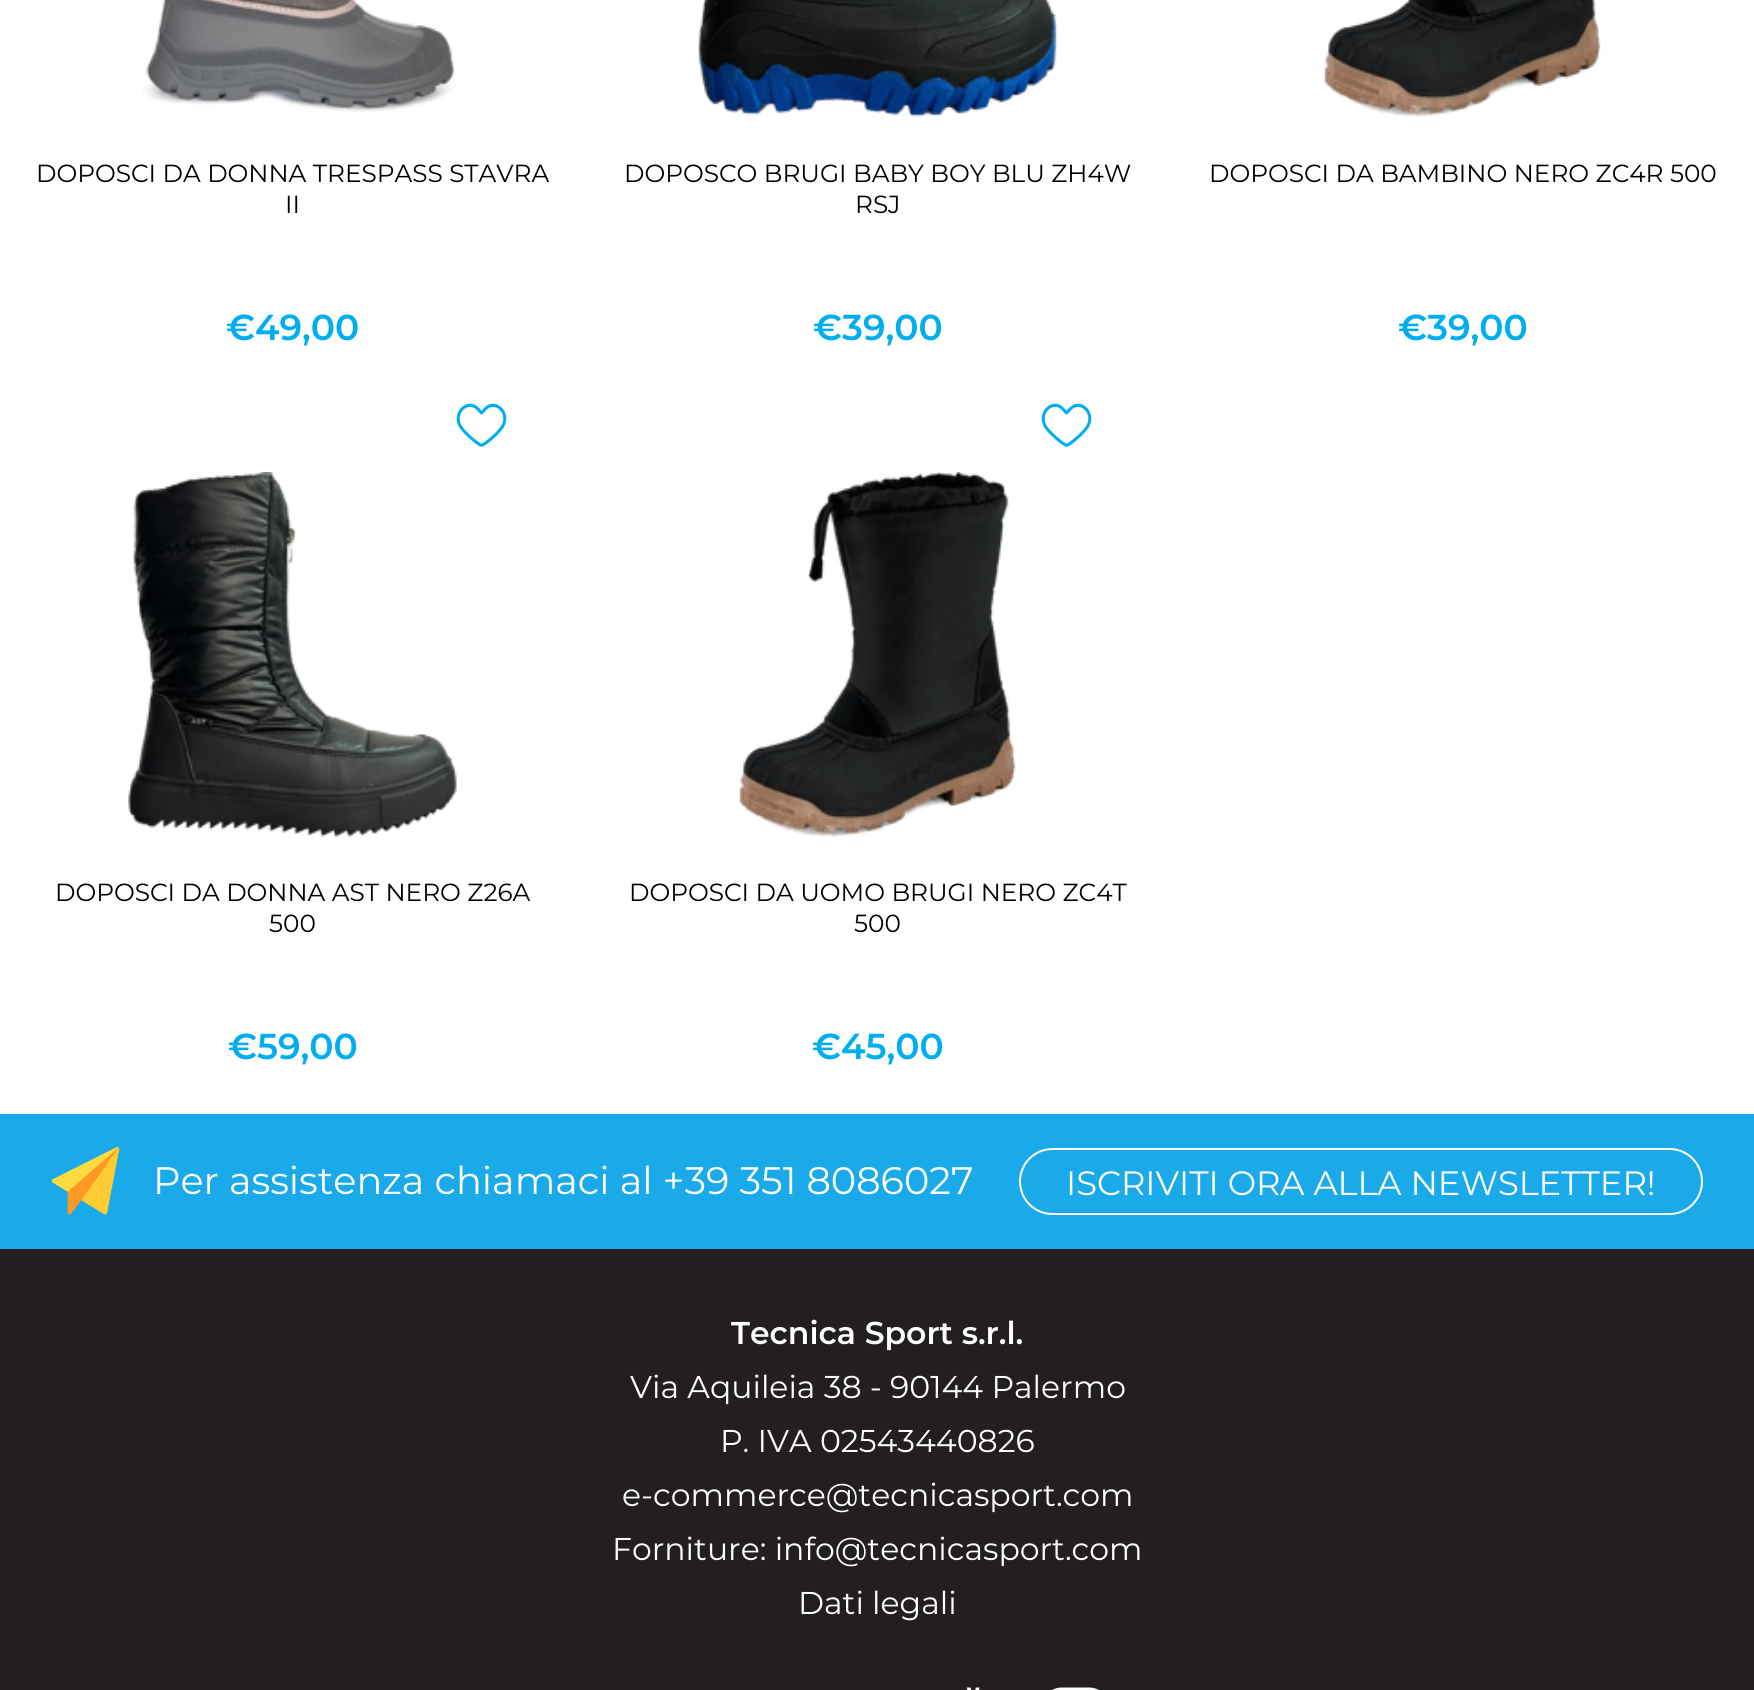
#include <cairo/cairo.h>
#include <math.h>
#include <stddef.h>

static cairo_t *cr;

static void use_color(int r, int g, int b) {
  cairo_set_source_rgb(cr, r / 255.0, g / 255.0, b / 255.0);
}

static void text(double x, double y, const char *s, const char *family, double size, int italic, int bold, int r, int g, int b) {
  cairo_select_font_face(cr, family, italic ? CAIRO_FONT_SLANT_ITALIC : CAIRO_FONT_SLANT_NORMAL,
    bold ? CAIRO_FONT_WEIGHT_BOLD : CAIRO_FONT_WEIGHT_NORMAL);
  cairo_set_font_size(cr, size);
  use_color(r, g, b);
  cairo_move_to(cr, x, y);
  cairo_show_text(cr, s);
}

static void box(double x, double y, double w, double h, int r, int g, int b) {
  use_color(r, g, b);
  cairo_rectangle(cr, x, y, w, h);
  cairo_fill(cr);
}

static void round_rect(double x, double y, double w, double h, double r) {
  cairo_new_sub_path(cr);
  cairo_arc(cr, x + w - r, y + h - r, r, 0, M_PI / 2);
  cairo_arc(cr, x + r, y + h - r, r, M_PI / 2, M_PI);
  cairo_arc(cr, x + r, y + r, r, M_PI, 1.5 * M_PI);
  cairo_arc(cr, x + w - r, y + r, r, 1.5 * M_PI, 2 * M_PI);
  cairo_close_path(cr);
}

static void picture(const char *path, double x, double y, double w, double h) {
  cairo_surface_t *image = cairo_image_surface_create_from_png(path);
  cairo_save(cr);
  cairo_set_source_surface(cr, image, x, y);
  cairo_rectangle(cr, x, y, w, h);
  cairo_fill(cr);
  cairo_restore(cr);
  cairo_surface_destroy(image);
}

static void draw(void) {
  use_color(255, 255, 255);
  cairo_paint(cr);
  picture("img_01.png", 142, 0, 313, 112);
  picture("img_02.png", 697, 0, 361, 117);
  picture("img_03.png", 1324, 0, 277, 117);
  picture("img_04.png", 128, 472, 329, 365);
  picture("img_05.png", 456, 403, 51, 44);
  picture("img_06.png", 739, 472, 277, 365);
  picture("img_05.png", 1041, 403, 51, 44);
  box(0, 1114, 1754, 135, 27, 170, 233);
  picture("img_07.png", 51, 1147, 69, 68);
  round_rect(1020, 1149, 682, 65, 32.5);
  use_color(255, 255, 255);
  cairo_stroke(cr);
  box(0, 1249, 1754, 441, 35, 31, 32);
  picture("img_08.png", 966, 1687, 14, 3);
  picture("img_09.png", 1052, 1687, 47, 3);
  text(36, 182, "DOPOSCI DA DONNA TRESPASS STAVRA", "Montserrat", 24.75, 0, 0, 0, 0, 0);
  text(285, 213, "II", "Montserrat", 24.75, 0, 0, 0, 0, 0);
  text(226, 340, "€49,00", "Montserrat SemiBold", 36, 0, 0, 0, 173, 238);
  text(624, 182, "DOPOSCO BRUGI BABY BOY BLU ZH4W", "Montserrat", 24.75, 0, 0, 0, 0, 0);
  text(855, 213, "RSJ", "Montserrat", 24.75, 0, 0, 0, 0, 0);
  text(813, 340, "€39,00", "Montserrat SemiBold", 36, 0, 0, 0, 173, 238);
  text(1209, 182, "DOPOSCI DA BAMBINO NERO ZC4R 500", "Montserrat", 24.75, 0, 0, 0, 0, 0);
  text(1398, 340, "€39,00", "Montserrat SemiBold", 36, 0, 0, 0, 173, 238);
  text(55, 901, "DOPOSCI DA DONNA AST NERO Z26A", "Montserrat", 24.75, 0, 0, 0, 0, 0);
  text(269, 932, "500", "Montserrat", 24.75, 0, 0, 0, 0, 0);
  text(228, 1059, "€59,00", "Montserrat SemiBold", 36, 0, 0, 0, 173, 238);
  text(629, 901, "DOPOSCI DA UOMO BRUGI NERO ZC4T", "Montserrat", 24.75, 0, 0, 0, 0, 0);
  text(854, 932, "500", "Montserrat", 24.75, 0, 0, 0, 0, 0);
  text(812, 1059, "€45,00", "Montserrat SemiBold", 36, 0, 0, 0, 173, 238);
  text(153, 1194, "Per assistenza chiamaci al +39 351 8086027", "Montserrat", 38.25, 0, 0, 255, 255, 255);
  text(1066, 1195, "ISCRIVITI ORA ALLA NEWSLETTER!", "Montserrat", 33.75, 0, 0, 255, 255, 255);
  text(731, 1344, "Tecnica Sport s.r.l.", "Montserrat SemiBold", 31.5, 0, 0, 255, 255, 255);
  text(630, 1398, "Via Aquileia 38 - 90144 Palermo", "Montserrat", 31.5, 0, 0, 255, 255, 255);
  text(720, 1452, "P. IVA 02543440826", "Montserrat", 31.5, 0, 0, 255, 255, 255);
  text(622, 1506, "e-commerce@tecnicasport.com", "Montserrat", 31.5, 0, 0, 255, 255, 255);
  text(612, 1560, "Forniture: info@tecnicasport.com", "Montserrat", 31.5, 0, 0, 255, 255, 255);
  text(798, 1614, "Dati legali", "Montserrat", 31.5, 0, 0, 255, 255, 255);
}

int main(void) {
  cairo_surface_t *surface = cairo_image_surface_create(CAIRO_FORMAT_RGB24, 1754, 1690);
  cr = cairo_create(surface);
  cairo_font_options_t *options = cairo_font_options_create();
  cairo_font_options_set_hint_metrics(options, CAIRO_HINT_METRICS_OFF);
  cairo_font_options_set_hint_style(options, CAIRO_HINT_STYLE_NONE);
  cairo_set_font_options(cr, options);
  cairo_set_miter_limit(cr, 4);
  draw();
  cairo_surface_write_to_png(surface, "out.png");
  cairo_font_options_destroy(options);
  cairo_destroy(cr);
  cairo_surface_destroy(surface);
  return 0;
}
